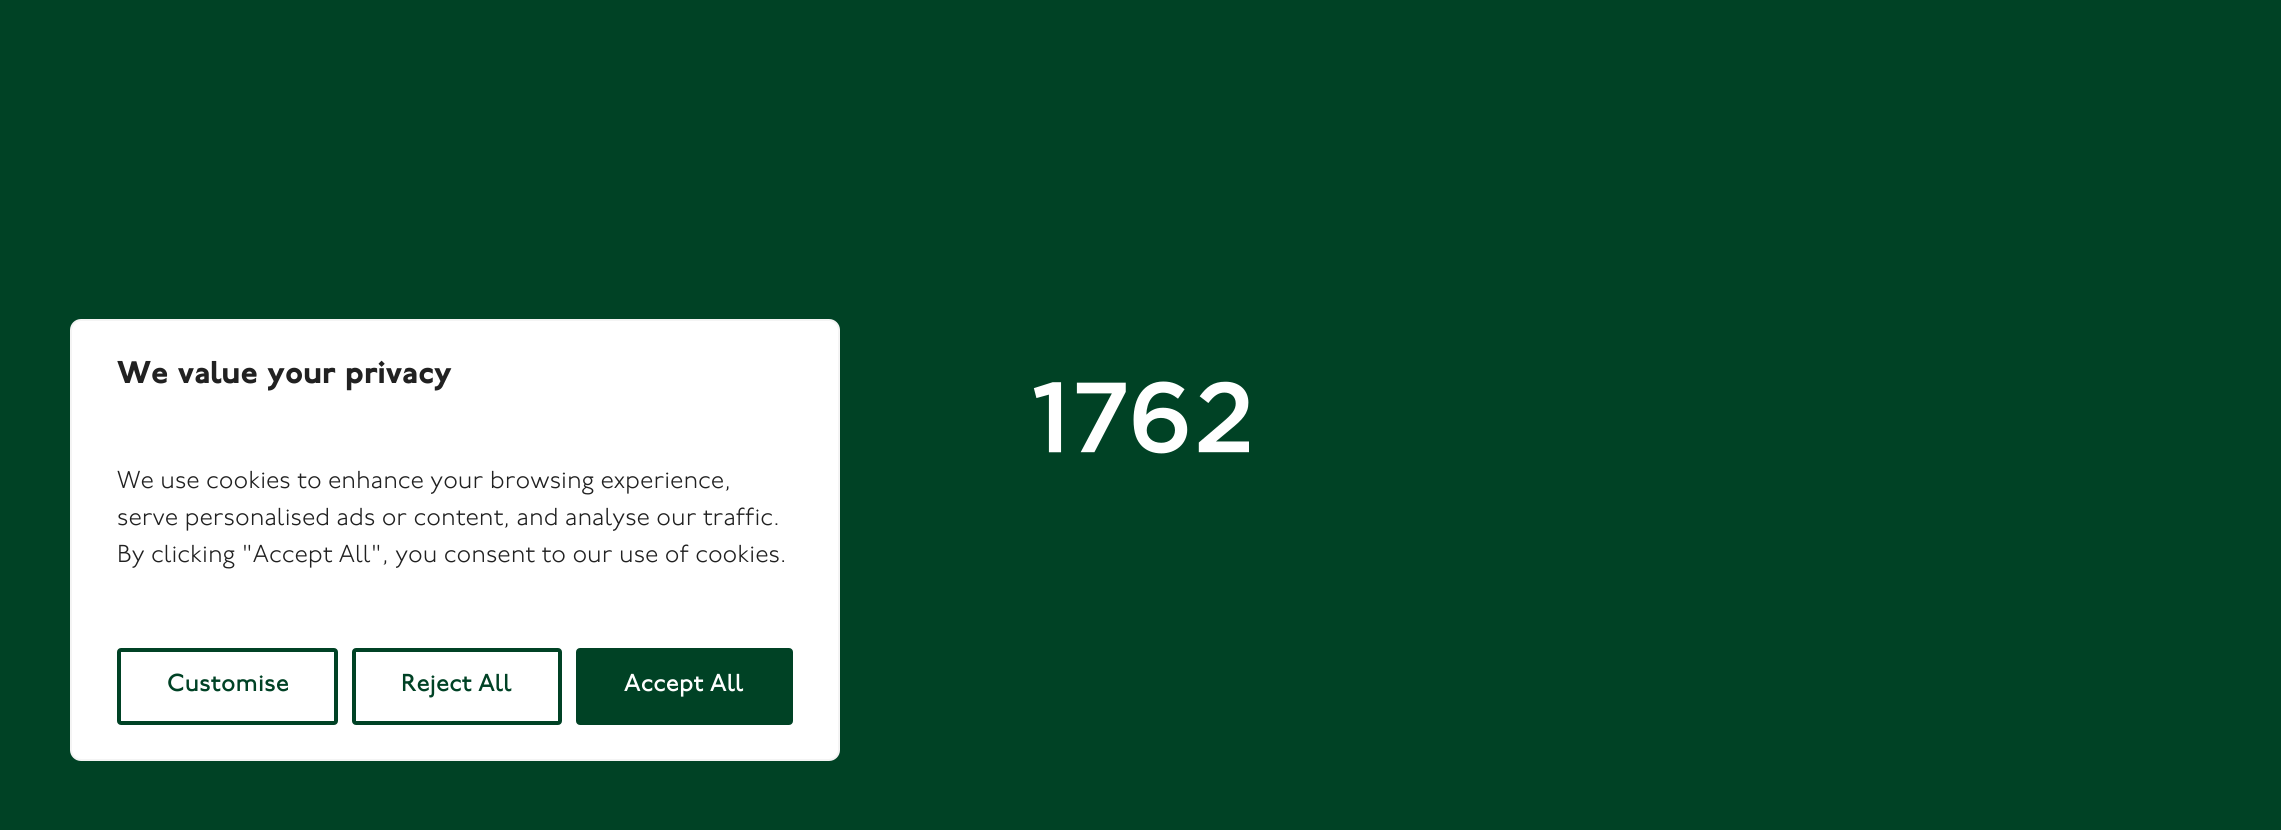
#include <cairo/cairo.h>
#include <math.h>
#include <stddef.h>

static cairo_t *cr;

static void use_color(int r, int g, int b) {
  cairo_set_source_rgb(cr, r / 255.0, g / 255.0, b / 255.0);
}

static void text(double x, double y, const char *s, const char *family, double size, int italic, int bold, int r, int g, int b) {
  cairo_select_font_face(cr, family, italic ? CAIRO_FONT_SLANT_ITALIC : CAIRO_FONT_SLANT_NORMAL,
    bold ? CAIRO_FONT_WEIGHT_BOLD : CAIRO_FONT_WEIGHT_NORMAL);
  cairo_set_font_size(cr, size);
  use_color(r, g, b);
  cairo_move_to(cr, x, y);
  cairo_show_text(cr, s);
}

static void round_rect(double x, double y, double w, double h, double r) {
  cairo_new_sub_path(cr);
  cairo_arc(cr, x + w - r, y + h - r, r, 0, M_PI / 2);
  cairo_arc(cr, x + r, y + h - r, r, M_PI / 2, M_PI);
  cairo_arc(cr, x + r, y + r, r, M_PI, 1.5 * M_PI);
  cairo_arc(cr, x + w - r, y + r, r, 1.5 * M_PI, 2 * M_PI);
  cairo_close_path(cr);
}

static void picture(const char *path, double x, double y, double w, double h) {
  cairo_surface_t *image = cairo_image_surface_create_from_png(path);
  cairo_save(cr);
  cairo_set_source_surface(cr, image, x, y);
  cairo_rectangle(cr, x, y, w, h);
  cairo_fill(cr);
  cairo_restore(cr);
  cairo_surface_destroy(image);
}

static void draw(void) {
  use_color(0, 66, 37);
  cairo_paint(cr);
  use_color(255, 255, 255);
  round_rect(71, 320, 768, 440, 10);
  cairo_fill_preserve(cr);
  use_color(244, 244, 244);
  cairo_stroke(cr);
  round_rect(119, 650, 217, 73, 2);
  use_color(0, 66, 37);
  cairo_set_line_width(cr, 4);
  cairo_stroke(cr);
  round_rect(354, 650, 206, 73, 2);
  cairo_stroke(cr);
  round_rect(578, 650, 213, 73, 2);
  cairo_fill_preserve(cr);
  cairo_stroke(cr);
  picture("img_01.png", 1033, 381, 216, 73);
  text(117, 383, "We value your privacy", "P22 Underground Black", 31.5, 0, 0, 33, 33, 33);
  text(117, 488, "We use cookies to enhance your browsing experience,", "P22 Underground Light", 24.5, 0, 0, 33, 33, 33);
  text(117, 525, "serve personalised ads or content, and analyse our traffic.", "P22 Underground Light", 24.5, 0, 0, 33, 33, 33);
  text(117, 562, "By clicking \"Accept All\", you consent to our use of cookies.", "P22 Underground Light", 24.5, 0, 0, 33, 33, 33);
  text(167, 691, "Customise", "P22 Underground Medium", 24.5, 0, 0, 0, 66, 37);
  text(401, 691, "Reject All", "P22 Underground Medium", 24.5, 0, 0, 0, 66, 37);
  text(624, 691, "Accept All", "P22 Underground Medium", 24.5, 0, 0, 255, 255, 255);
}

int main(void) {
  cairo_surface_t *surface = cairo_image_surface_create(CAIRO_FORMAT_RGB24, 2281, 830);
  cr = cairo_create(surface);
  cairo_font_options_t *options = cairo_font_options_create();
  cairo_font_options_set_hint_metrics(options, CAIRO_HINT_METRICS_OFF);
  cairo_font_options_set_hint_style(options, CAIRO_HINT_STYLE_NONE);
  cairo_set_font_options(cr, options);
  cairo_set_miter_limit(cr, 4);
  draw();
  cairo_surface_write_to_png(surface, "out.png");
  cairo_font_options_destroy(options);
  cairo_destroy(cr);
  cairo_surface_destroy(surface);
  return 0;
}
